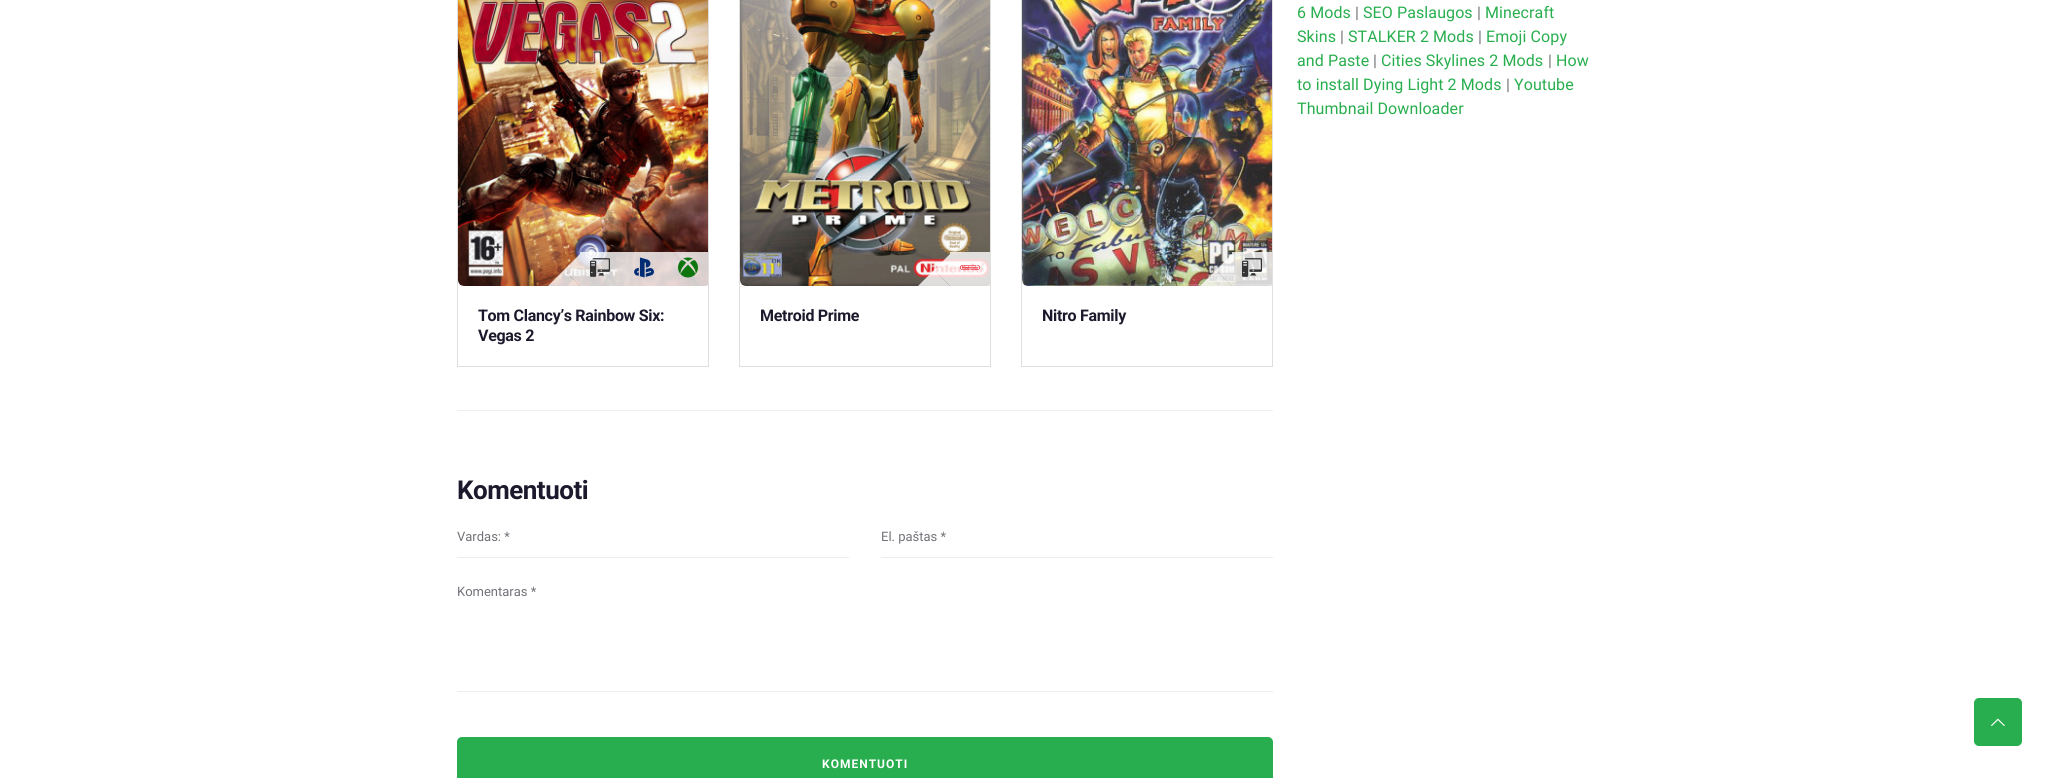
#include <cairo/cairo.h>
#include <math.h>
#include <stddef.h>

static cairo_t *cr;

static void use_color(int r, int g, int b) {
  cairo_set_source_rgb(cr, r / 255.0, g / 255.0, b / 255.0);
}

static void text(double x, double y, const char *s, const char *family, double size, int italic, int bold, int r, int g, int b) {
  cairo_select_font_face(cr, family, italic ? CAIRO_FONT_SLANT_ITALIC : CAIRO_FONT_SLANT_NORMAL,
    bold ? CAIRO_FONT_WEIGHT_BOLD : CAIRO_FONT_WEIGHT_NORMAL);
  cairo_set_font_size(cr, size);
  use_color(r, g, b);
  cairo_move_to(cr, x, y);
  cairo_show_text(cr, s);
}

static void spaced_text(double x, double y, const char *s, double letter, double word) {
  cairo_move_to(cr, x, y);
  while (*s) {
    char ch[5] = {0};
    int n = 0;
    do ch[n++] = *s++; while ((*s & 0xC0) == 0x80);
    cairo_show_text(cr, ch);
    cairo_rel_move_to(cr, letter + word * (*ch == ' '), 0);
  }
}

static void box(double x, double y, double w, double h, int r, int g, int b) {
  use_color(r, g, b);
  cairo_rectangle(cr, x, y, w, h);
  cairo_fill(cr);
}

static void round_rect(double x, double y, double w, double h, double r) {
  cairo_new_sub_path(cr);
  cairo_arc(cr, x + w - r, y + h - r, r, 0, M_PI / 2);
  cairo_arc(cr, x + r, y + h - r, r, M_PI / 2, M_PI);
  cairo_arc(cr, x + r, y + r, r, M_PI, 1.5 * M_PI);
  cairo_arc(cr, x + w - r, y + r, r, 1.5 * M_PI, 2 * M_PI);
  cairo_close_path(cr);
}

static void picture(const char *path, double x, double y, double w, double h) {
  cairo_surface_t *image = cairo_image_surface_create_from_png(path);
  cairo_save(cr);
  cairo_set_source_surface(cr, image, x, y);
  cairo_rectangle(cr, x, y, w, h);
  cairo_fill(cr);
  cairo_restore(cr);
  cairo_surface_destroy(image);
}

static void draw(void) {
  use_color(255, 255, 255);
  cairo_paint(cr);
  cairo_rectangle(cr, 457.5, -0.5, 251, 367);
  use_color(223, 223, 223);
  cairo_set_line_width(cr, 1);
  cairo_stroke(cr);
  picture("img_01.png", 458, 0, 250, 286);
  cairo_set_source_rgba(cr, 1, 1, 1, 0.8);
  cairo_rectangle(cr, 580, 252, 128, 34);
  cairo_fill(cr);
  cairo_new_path(cr);
  cairo_move_to(cr, 580, 254);
  cairo_line_to(cr, 580, 286);
  cairo_line_to(cr, 564, 270);
  cairo_close_path(cr);
  cairo_fill(cr);
  cairo_new_path(cr);
  cairo_move_to(cr, 580, 286);
  cairo_line_to(cr, 548, 286);
  cairo_line_to(cr, 564, 270);
  cairo_close_path(cr);
  cairo_fill(cr);
  picture("img_02.png", 590, 258, 20, 19);
  picture("img_03.png", 634, 257, 20, 21);
  picture("img_04.png", 678, 257, 20, 21);
  cairo_rectangle(cr, 739.5, -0.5, 251, 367);
  use_color(223, 223, 223);
  cairo_stroke(cr);
  picture("img_05.png", 740, 0, 250, 286);
  cairo_set_source_rgba(cr, 1, 1, 1, 0.8);
  cairo_rectangle(cr, 950, 252, 40, 34);
  cairo_fill(cr);
  cairo_new_path(cr);
  cairo_move_to(cr, 950, 254);
  cairo_line_to(cr, 950, 286);
  cairo_line_to(cr, 934, 270);
  cairo_close_path(cr);
  cairo_fill(cr);
  cairo_new_path(cr);
  cairo_move_to(cr, 950, 286);
  cairo_line_to(cr, 918, 286);
  cairo_line_to(cr, 934, 270);
  cairo_close_path(cr);
  cairo_fill(cr);
  picture("img_06.png", 960, 265, 20, 5);
  cairo_rectangle(cr, 1021.5, -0.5, 251, 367);
  use_color(223, 223, 223);
  cairo_stroke(cr);
  picture("img_07.png", 1022, 0, 250, 286);
  cairo_set_source_rgba(cr, 1, 1, 1, 0.8);
  cairo_rectangle(cr, 1232, 252, 40, 34);
  cairo_fill(cr);
  cairo_new_path(cr);
  cairo_move_to(cr, 1232, 254);
  cairo_line_to(cr, 1232, 286);
  cairo_line_to(cr, 1216, 270);
  cairo_close_path(cr);
  cairo_fill(cr);
  cairo_new_path(cr);
  cairo_move_to(cr, 1232, 286);
  cairo_line_to(cr, 1200, 286);
  cairo_line_to(cr, 1216, 270);
  cairo_close_path(cr);
  cairo_fill(cr);
  picture("img_08.png", 1242, 258, 20, 19);
  box(457, 410, 816, 1, 239, 239, 240);
  box(457, 557, 392, 1, 237, 237, 237);
  box(881, 557, 392, 1, 237, 237, 237);
  box(457, 691, 816, 1, 237, 237, 237);
  use_color(40, 174, 78);
  round_rect(457, 737, 816, 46, 5);
  cairo_fill(cr);
  round_rect(1974, 698, 48, 48, 5);
  cairo_fill(cr);
  picture("img_09.png", 1991, 718, 14, 8);
  cairo_select_font_face(cr, "Roboto", CAIRO_FONT_SLANT_NORMAL, CAIRO_FONT_WEIGHT_NORMAL);
  cairo_set_font_size(cr, 16);
  spaced_text(1297, 18, "6 Mods", 0.1, 0);
  use_color(114, 114, 121);
  spaced_text(1355, 18, "|", 0.1, 0);
  use_color(40, 174, 78);
  spaced_text(1363, 18, "SEO Paslaugos", 0.1, 0);
  use_color(114, 114, 121);
  spaced_text(1477, 18, "|", 0.1, 0);
  use_color(40, 174, 78);
  spaced_text(1485, 18, "Minecraft", 0.1, 0);
  spaced_text(1297, 42, "Skins", 0.1, 0);
  use_color(114, 114, 121);
  spaced_text(1340, 42, "|", 0.1, 0);
  use_color(40, 174, 78);
  spaced_text(1348, 42, "STALKER 2 Mods", 0.1, 0);
  use_color(114, 114, 121);
  spaced_text(1478, 42, "|", 0.1, 0);
  use_color(40, 174, 78);
  spaced_text(1486, 42, "Emoji Copy", 0.1, 0);
  spaced_text(1297, 66, "and Paste", 0.1, 0);
  use_color(114, 114, 121);
  spaced_text(1373, 66, "|", 0.1, 0);
  use_color(40, 174, 78);
  spaced_text(1381, 66, "Cities Skylines 2 Mods", 0.1, 0);
  use_color(114, 114, 121);
  spaced_text(1548, 66, "|", 0.1, 0);
  use_color(40, 174, 78);
  spaced_text(1556, 66, "How", 0.1, 0);
  spaced_text(1297, 90, "to install Dying Light 2 Mods", 0.1, 0);
  use_color(114, 114, 121);
  spaced_text(1506, 90, "|", 0.1, 0);
  use_color(40, 174, 78);
  spaced_text(1514, 90, "Youtube", 0.1, 0);
  spaced_text(1297, 114, "Thumbnail Downloader", 0.1, 0);
  cairo_select_font_face(cr, "Roboto", CAIRO_FONT_SLANT_NORMAL, CAIRO_FONT_WEIGHT_BOLD);
  use_color(28, 25, 44);
  spaced_text(478, 321, "Tom Clancy’s Rainbow Six:", -0.3, 0);
  spaced_text(478, 341, "Vegas 2", -0.3, 0);
  spaced_text(760, 321, "Metroid Prime", -0.3, 0);
  spaced_text(1042, 321, "Nitro Family", -0.3, 0);
  cairo_set_font_size(cr, 26);
  spaced_text(457, 499, "Komentuoti", -0.5, 0);
  text(457, 541, "Vardas: *", "Roboto", 13, 0, 0, 114, 114, 121);
  text(881, 541, "El. paštas *", "Roboto", 13, 0, 0, 114, 114, 121);
  text(457, 596, "Komentaras *", "Roboto", 13, 0, 0, 114, 114, 121);
  cairo_select_font_face(cr, "Roboto", CAIRO_FONT_SLANT_NORMAL, CAIRO_FONT_WEIGHT_BOLD);
  cairo_set_font_size(cr, 12);
  use_color(255, 255, 255);
  spaced_text(822, 768, "KOMENTUOTI", 1, 0);
}

int main(void) {
  cairo_surface_t *surface = cairo_image_surface_create(CAIRO_FORMAT_RGB24, 2054, 778);
  cr = cairo_create(surface);
  cairo_font_options_t *options = cairo_font_options_create();
  cairo_font_options_set_hint_metrics(options, CAIRO_HINT_METRICS_OFF);
  cairo_font_options_set_hint_style(options, CAIRO_HINT_STYLE_NONE);
  cairo_set_font_options(cr, options);
  cairo_set_miter_limit(cr, 4);
  draw();
  cairo_surface_write_to_png(surface, "out.png");
  cairo_font_options_destroy(options);
  cairo_destroy(cr);
  cairo_surface_destroy(surface);
  return 0;
}
